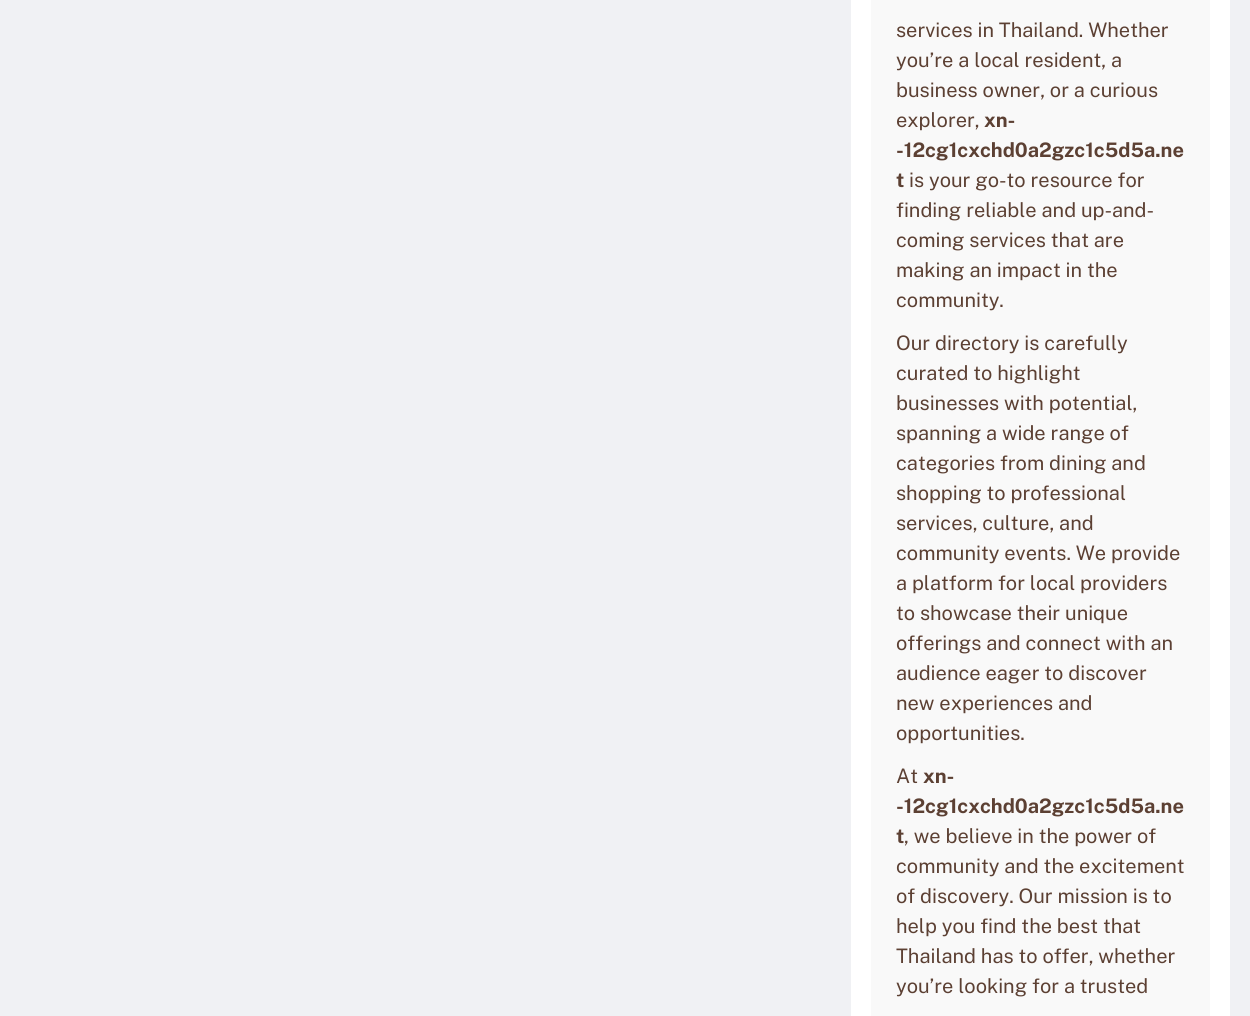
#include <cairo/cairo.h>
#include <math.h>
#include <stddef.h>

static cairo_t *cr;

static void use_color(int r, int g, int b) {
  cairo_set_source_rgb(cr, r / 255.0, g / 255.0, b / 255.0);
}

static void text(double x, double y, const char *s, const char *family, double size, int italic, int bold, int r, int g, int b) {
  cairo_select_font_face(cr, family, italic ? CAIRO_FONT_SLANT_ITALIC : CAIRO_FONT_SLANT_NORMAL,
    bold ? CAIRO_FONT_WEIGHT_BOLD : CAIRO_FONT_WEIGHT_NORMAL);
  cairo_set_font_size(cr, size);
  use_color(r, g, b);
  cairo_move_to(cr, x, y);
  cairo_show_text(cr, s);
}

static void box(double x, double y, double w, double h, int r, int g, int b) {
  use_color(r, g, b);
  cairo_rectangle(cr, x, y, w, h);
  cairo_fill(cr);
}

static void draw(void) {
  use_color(240, 241, 244);
  cairo_paint(cr);
  box(851, 0, 379, 1016, 255, 255, 255);
  box(871, 0, 339, 1016, 249, 249, 249);
  text(896, 37, "services in Thailand. Whether", "Public Sans", 20, 0, 0, 92, 64, 51);
  text(896, 67, "you’re a local resident, a", "Public Sans", 20, 0, 0, 92, 64, 51);
  text(896, 97, "business owner, or a curious", "Public Sans", 20, 0, 0, 92, 64, 51);
  text(896, 127, "explorer,", "Public Sans", 20, 0, 0, 92, 64, 51);
  text(984, 127, "xn-", "Public Sans", 20, 0, 1, 92, 64, 51);
  text(896, 157, "-12cg1cxchd0a2gzc1c5d5a.ne", "Public Sans", 20, 0, 1, 92, 64, 51);
  text(896, 187, "t", "Public Sans", 20, 0, 1, 92, 64, 51);
  text(909, 187, "is your go-to resource for", "Public Sans", 20, 0, 0, 92, 64, 51);
  text(896, 217, "finding reliable and up-and-", "Public Sans", 20, 0, 0, 92, 64, 51);
  text(896, 247, "coming services that are", "Public Sans", 20, 0, 0, 92, 64, 51);
  text(896, 277, "making an impact in the", "Public Sans", 20, 0, 0, 92, 64, 51);
  text(896, 307, "community.", "Public Sans", 20, 0, 0, 92, 64, 51);
  text(896, 350, "Our directory is carefully", "Public Sans", 20, 0, 0, 92, 64, 51);
  text(896, 380, "curated to highlight", "Public Sans", 20, 0, 0, 92, 64, 51);
  text(896, 410, "businesses with potential,", "Public Sans", 20, 0, 0, 92, 64, 51);
  text(896, 440, "spanning a wide range of", "Public Sans", 20, 0, 0, 92, 64, 51);
  text(896, 470, "categories from dining and", "Public Sans", 20, 0, 0, 92, 64, 51);
  text(896, 500, "shopping to professional", "Public Sans", 20, 0, 0, 92, 64, 51);
  text(896, 530, "services, culture, and", "Public Sans", 20, 0, 0, 92, 64, 51);
  text(896, 560, "community events. We provide", "Public Sans", 20, 0, 0, 92, 64, 51);
  text(896, 590, "a platform for local providers", "Public Sans", 20, 0, 0, 92, 64, 51);
  text(896, 620, "to showcase their unique", "Public Sans", 20, 0, 0, 92, 64, 51);
  text(896, 650, "offerings and connect with an", "Public Sans", 20, 0, 0, 92, 64, 51);
  text(896, 680, "audience eager to discover", "Public Sans", 20, 0, 0, 92, 64, 51);
  text(896, 710, "new experiences and", "Public Sans", 20, 0, 0, 92, 64, 51);
  text(896, 740, "opportunities.", "Public Sans", 20, 0, 0, 92, 64, 51);
  text(896, 783, "At", "Public Sans", 20, 0, 0, 92, 64, 51);
  text(923, 783, "xn-", "Public Sans", 20, 0, 1, 92, 64, 51);
  text(896, 813, "-12cg1cxchd0a2gzc1c5d5a.ne", "Public Sans", 20, 0, 1, 92, 64, 51);
  text(896, 843, "t", "Public Sans", 20, 0, 1, 92, 64, 51);
  text(904, 843, ", we believe in the power of", "Public Sans", 20, 0, 0, 92, 64, 51);
  text(896, 873, "community and the excitement", "Public Sans", 20, 0, 0, 92, 64, 51);
  text(896, 903, "of discovery. Our mission is to", "Public Sans", 20, 0, 0, 92, 64, 51);
  text(896, 933, "help you find the best that", "Public Sans", 20, 0, 0, 92, 64, 51);
  text(896, 963, "Thailand has to offer, whether", "Public Sans", 20, 0, 0, 92, 64, 51);
  text(896, 993, "you’re looking for a trusted", "Public Sans", 20, 0, 0, 92, 64, 51);
}

int main(void) {
  cairo_surface_t *surface = cairo_image_surface_create(CAIRO_FORMAT_RGB24, 1250, 1016);
  cr = cairo_create(surface);
  cairo_font_options_t *options = cairo_font_options_create();
  cairo_font_options_set_hint_metrics(options, CAIRO_HINT_METRICS_OFF);
  cairo_font_options_set_hint_style(options, CAIRO_HINT_STYLE_NONE);
  cairo_set_font_options(cr, options);
  cairo_set_miter_limit(cr, 4);
  draw();
  cairo_surface_write_to_png(surface, "out.png");
  cairo_font_options_destroy(options);
  cairo_destroy(cr);
  cairo_surface_destroy(surface);
  return 0;
}
